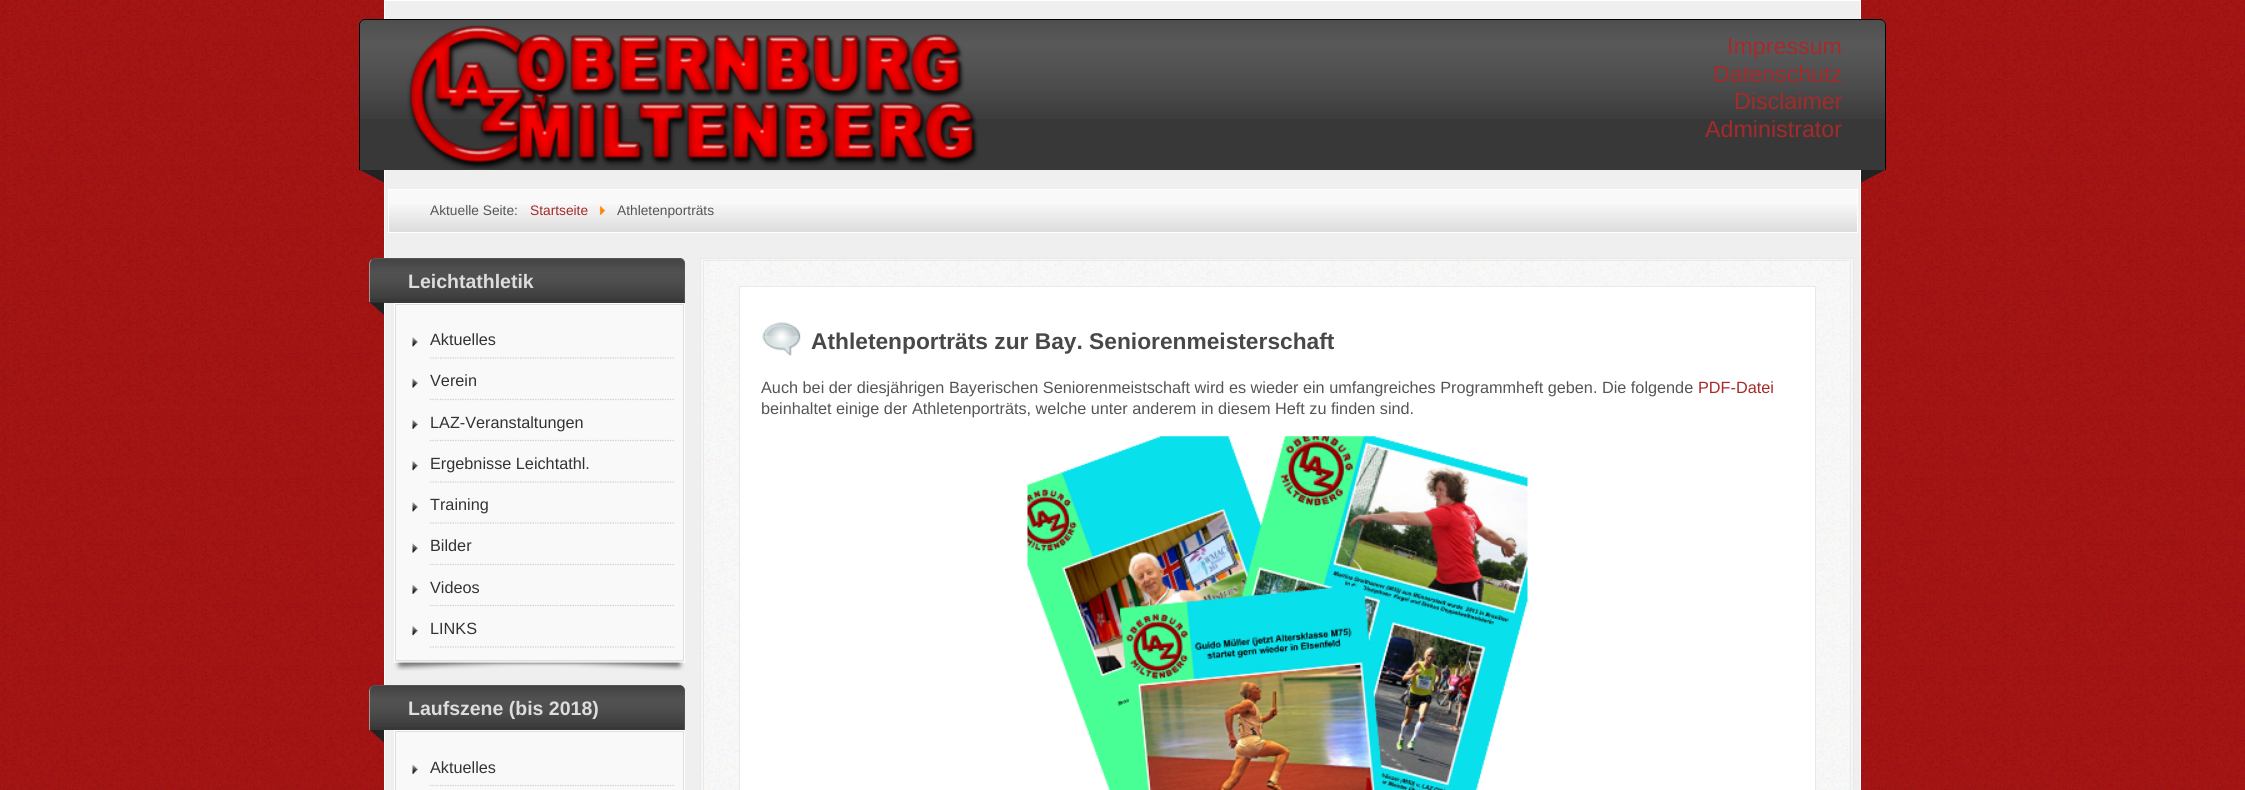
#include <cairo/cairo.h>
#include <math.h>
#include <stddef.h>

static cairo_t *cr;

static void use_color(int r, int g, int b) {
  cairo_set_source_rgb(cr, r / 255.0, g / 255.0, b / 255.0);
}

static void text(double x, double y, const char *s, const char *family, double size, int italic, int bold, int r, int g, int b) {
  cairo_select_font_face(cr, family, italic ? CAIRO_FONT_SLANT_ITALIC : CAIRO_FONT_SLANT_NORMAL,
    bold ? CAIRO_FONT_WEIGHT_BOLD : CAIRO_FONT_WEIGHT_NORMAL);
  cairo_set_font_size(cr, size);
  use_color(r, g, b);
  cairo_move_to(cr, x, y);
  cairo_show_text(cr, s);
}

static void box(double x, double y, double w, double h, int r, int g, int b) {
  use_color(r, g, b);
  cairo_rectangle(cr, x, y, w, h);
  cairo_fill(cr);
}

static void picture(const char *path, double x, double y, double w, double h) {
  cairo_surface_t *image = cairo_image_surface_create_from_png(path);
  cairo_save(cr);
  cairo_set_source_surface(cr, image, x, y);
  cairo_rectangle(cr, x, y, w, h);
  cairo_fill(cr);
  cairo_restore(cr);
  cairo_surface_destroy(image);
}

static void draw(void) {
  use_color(156, 0, 0);
  cairo_paint(cr);
  picture("img_01.png", 0, 0, 2245, 790);
  use_color(239, 239, 239);
  cairo_rectangle(cr, 384.5, 0.5, 1476, 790);
  cairo_fill_preserve(cr);
  use_color(255, 255, 255);
  cairo_set_line_width(cr, 1);
  cairo_stroke(cr);
  use_color(56, 56, 56);
  cairo_new_path(cr);
  cairo_move_to(cr, 365, 19);
  cairo_line_to(cr, 1880, 19);
  cairo_curve_to(cr, 1883.5, 19, 1886, 21.5, 1886, 25);
  cairo_line_to(cr, 1886, 170);
  cairo_line_to(cr, 359, 170);
  cairo_line_to(cr, 359, 25);
  cairo_curve_to(cr, 359, 21.5, 361.5, 19, 365, 19);
  cairo_close_path(cr);
  cairo_fill(cr);
  picture("img_02.png", 359, 20, 1527, 99);
  use_color(0, 0, 0);
  cairo_set_fill_rule(cr, CAIRO_FILL_RULE_EVEN_ODD);
  cairo_new_path(cr);
  cairo_move_to(cr, 365, 19);
  cairo_line_to(cr, 1880, 19);
  cairo_curve_to(cr, 1883, 19, 1886, 22, 1886, 25);
  cairo_line_to(cr, 1886, 170);
  cairo_line_to(cr, 359, 170);
  cairo_line_to(cr, 359, 25);
  cairo_curve_to(cr, 359, 22, 362, 19, 365, 19);
  cairo_close_path(cr);
  cairo_move_to(cr, 365, 20);
  cairo_line_to(cr, 1880, 20);
  cairo_curve_to(cr, 1883, 20, 1885, 22, 1885, 25);
  cairo_line_to(cr, 1885, 170);
  cairo_line_to(cr, 360, 170);
  cairo_line_to(cr, 360, 25);
  cairo_curve_to(cr, 360, 22, 362, 20, 365, 20);
  cairo_close_path(cr);
  cairo_fill(cr);
  picture("img_03.png", 407, 25, 571, 144);
  use_color(34, 34, 34);
  cairo_set_fill_rule(cr, CAIRO_FILL_RULE_WINDING);
  cairo_new_path(cr);
  cairo_move_to(cr, 360, 170);
  cairo_line_to(cr, 384, 170);
  cairo_line_to(cr, 384, 182.5);
  cairo_close_path(cr);
  cairo_fill(cr);
  cairo_new_path(cr);
  cairo_move_to(cr, 1861, 170);
  cairo_line_to(cr, 1885, 170);
  cairo_line_to(cr, 1861, 182.5);
  cairo_close_path(cr);
  cairo_fill(cr);
  box(389, 190, 1468, 42, 249, 249, 249);
  picture("img_04.png", 387, 204, 1470, 29);
  cairo_rectangle(cr, 388.5, 189.5, 1469, 43);
  use_color(255, 255, 255);
  cairo_stroke(cr);
  picture("img_05.png", 599, 206, 7, 9);
  use_color(56, 56, 56);
  cairo_new_path(cr);
  cairo_move_to(cr, 375, 258);
  cairo_line_to(cr, 679, 258);
  cairo_curve_to(cr, 682.5, 258, 685, 260.5, 685, 264);
  cairo_line_to(cr, 685, 303);
  cairo_line_to(cr, 369, 303);
  cairo_line_to(cr, 369, 264);
  cairo_curve_to(cr, 369, 260.5, 371.5, 258, 375, 258);
  cairo_close_path(cr);
  cairo_fill(cr);
  picture("img_06.png", 369, 259, 316, 40);
  use_color(85, 85, 85);
  cairo_new_path(cr);
  cairo_move_to(cr, 375, 258);
  cairo_line_to(cr, 680, 258);
  cairo_line_to(cr, 683, 259);
  cairo_line_to(cr, 682, 260);
  cairo_line_to(cr, 679, 259);
  cairo_line_to(cr, 375, 259);
  cairo_curve_to(cr, 374, 259, 372, 259, 372, 260);
  cairo_line_to(cr, 371, 260);
  cairo_curve_to(cr, 372, 259, 373, 258, 375, 258);
  cairo_close_path(cr);
  cairo_fill(cr);
  cairo_new_path(cr);
  cairo_move_to(cr, 683, 259);
  cairo_curve_to(cr, 684, 260, 685, 262, 685, 264);
  cairo_line_to(cr, 685, 302);
  cairo_line_to(cr, 684, 302);
  cairo_line_to(cr, 684, 264);
  cairo_curve_to(cr, 684, 262, 683, 261, 682, 260);
  cairo_close_path(cr);
  cairo_fill(cr);
  use_color(153, 153, 153);
  cairo_new_path(cr);
  cairo_move_to(cr, 371, 260);
  cairo_line_to(cr, 372, 260);
  cairo_curve_to(cr, 371, 261, 370, 262, 370, 264);
  cairo_line_to(cr, 370, 302);
  cairo_line_to(cr, 369, 302);
  cairo_line_to(cr, 369, 264);
  cairo_curve_to(cr, 369, 262, 370, 261, 371, 260);
  cairo_close_path(cr);
  cairo_fill(cr);
  use_color(34, 34, 34);
  cairo_new_path(cr);
  cairo_move_to(cr, 370, 302.5);
  cairo_line_to(cr, 384, 302.5);
  cairo_line_to(cr, 384, 315);
  cairo_close_path(cr);
  cairo_fill(cr);
  cairo_rectangle(cr, 394.5, 303.5, 290, 359);
  use_color(255, 255, 255);
  cairo_stroke(cr);
  use_color(249, 249, 249);
  cairo_rectangle(cr, 395.5, 304.5, 288, 356);
  cairo_fill_preserve(cr);
  use_color(221, 221, 221);
  cairo_stroke(cr);
  picture("img_07.png", 412, 337, 6, 10);
  cairo_new_path(cr);
  cairo_move_to(cr, 430, 358);
  cairo_line_to(cr, 674, 358);
  use_color(204, 204, 204);
  cairo_set_line_width(cr, 1.2);
  cairo_set_dash(cr, (double[]){1.25, 1.25}, 2, 0);
  cairo_stroke(cr);
  picture("img_08.png", 412, 378, 6, 10);
  cairo_new_path(cr);
  cairo_move_to(cr, 430, 399.5);
  cairo_line_to(cr, 674, 399.5);
  cairo_stroke(cr);
  picture("img_09.png", 412, 420, 6, 9);
  cairo_new_path(cr);
  cairo_move_to(cr, 430, 440.5);
  cairo_line_to(cr, 674, 440.5);
  cairo_stroke(cr);
  picture("img_10.png", 412, 461, 6, 10);
  cairo_new_path(cr);
  cairo_move_to(cr, 430, 482);
  cairo_line_to(cr, 674, 482);
  cairo_stroke(cr);
  picture("img_07.png", 412, 502, 6, 10);
  cairo_new_path(cr);
  cairo_move_to(cr, 430, 523);
  cairo_line_to(cr, 674, 523);
  cairo_stroke(cr);
  picture("img_08.png", 412, 543, 6, 10);
  cairo_new_path(cr);
  cairo_move_to(cr, 430, 564.5);
  cairo_line_to(cr, 674, 564.5);
  cairo_stroke(cr);
  picture("img_11.png", 412, 585, 6, 9);
  cairo_new_path(cr);
  cairo_move_to(cr, 430, 605.5);
  cairo_line_to(cr, 674, 605.5);
  cairo_stroke(cr);
  picture("img_10.png", 412, 626, 6, 10);
  cairo_new_path(cr);
  cairo_move_to(cr, 430, 647);
  cairo_line_to(cr, 674, 647);
  cairo_stroke(cr);
  picture("img_12.png", 394, 662, 256, 9);
  picture("img_13.png", 436, 662, 249, 9);
  use_color(56, 56, 56);
  cairo_new_path(cr);
  cairo_move_to(cr, 375, 685);
  cairo_line_to(cr, 679, 685);
  cairo_curve_to(cr, 682.5, 685, 685, 687.5, 685, 691);
  cairo_line_to(cr, 685, 730);
  cairo_line_to(cr, 369, 730);
  cairo_line_to(cr, 369, 691);
  cairo_curve_to(cr, 369, 687.5, 371.5, 685, 375, 685);
  cairo_close_path(cr);
  cairo_fill(cr);
  picture("img_14.png", 369, 686, 316, 41);
  use_color(85, 85, 85);
  cairo_new_path(cr);
  cairo_move_to(cr, 375, 685);
  cairo_line_to(cr, 679, 685);
  cairo_curve_to(cr, 680, 685, 682, 686, 683, 687);
  cairo_curve_to(cr, 682, 686, 680, 686, 679, 686);
  cairo_line_to(cr, 375, 686);
  cairo_curve_to(cr, 373, 686, 372, 687, 371, 688);
  cairo_line_to(cr, 371, 687);
  cairo_curve_to(cr, 372, 686, 373, 685, 375, 685);
  cairo_close_path(cr);
  cairo_fill(cr);
  cairo_new_path(cr);
  cairo_move_to(cr, 684, 730);
  cairo_line_to(cr, 685, 730);
  cairo_line_to(cr, 685, 691);
  cairo_curve_to(cr, 685, 690, 684, 688, 683, 687);
  cairo_curve_to(cr, 684, 688, 684, 690, 684, 691);
  cairo_close_path(cr);
  cairo_fill(cr);
  use_color(153, 153, 153);
  cairo_new_path(cr);
  cairo_move_to(cr, 369, 730);
  cairo_line_to(cr, 370, 730);
  cairo_line_to(cr, 370, 691);
  cairo_curve_to(cr, 370, 690, 370, 688, 371, 688);
  cairo_line_to(cr, 371, 687);
  cairo_curve_to(cr, 370, 688, 369, 690, 369, 691);
  cairo_close_path(cr);
  cairo_fill(cr);
  use_color(34, 34, 34);
  cairo_new_path(cr);
  cairo_move_to(cr, 370, 730);
  cairo_line_to(cr, 384, 730);
  cairo_line_to(cr, 384, 742.5);
  cairo_close_path(cr);
  cairo_fill(cr);
  cairo_rectangle(cr, 394.5, 730.5, 290, 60);
  use_color(255, 255, 255);
  cairo_set_line_width(cr, 1);
  cairo_set_dash(cr, NULL, 0, 0);
  cairo_stroke(cr);
  use_color(249, 249, 249);
  cairo_rectangle(cr, 395.5, 731.5, 288, 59);
  cairo_fill_preserve(cr);
  use_color(221, 221, 221);
  cairo_stroke(cr);
  picture("img_09.png", 412, 765, 6, 9);
  cairo_new_path(cr);
  cairo_move_to(cr, 430, 785.5);
  cairo_line_to(cr, 674, 785.5);
  use_color(204, 204, 204);
  cairo_set_line_width(cr, 1.2);
  cairo_set_dash(cr, (double[]){1.25, 1.25}, 2, 0);
  cairo_stroke(cr);
  box(701, 259, 1152, 531, 249, 249, 249);
  picture("img_15.png", 700, 257, 1154, 533);
  cairo_rectangle(cr, 700.5, 258.5, 1153, 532);
  use_color(233, 233, 233);
  cairo_set_line_width(cr, 1);
  cairo_set_dash(cr, NULL, 0, 0);
  cairo_stroke(cr);
  cairo_rectangle(cr, 703.5, 260.5, 1147, 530);
  cairo_stroke(cr);
  use_color(255, 255, 255);
  cairo_rectangle(cr, 739.5, 286.5, 1076, 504);
  cairo_fill_preserve(cr);
  use_color(233, 233, 233);
  cairo_stroke(cr);
  picture("img_16.png", 762, 322, 39, 34);
  picture("img_17.png", 1027, 436, 501, 354);
  text(1727, 54, "Impressum", "Liberation Sans", 23.25, 0, 0, 165, 42, 42);
  text(1713, 82, "Datenschutz", "Liberation Sans", 23.25, 0, 0, 165, 42, 42);
  text(1734, 109, "Disclaimer", "Liberation Sans", 23.25, 0, 0, 165, 42, 42);
  text(1705, 137, "Administrator", "Liberation Sans", 23.25, 0, 0, 165, 42, 42);
  text(430, 215, "Aktuelle Seite:", "Liberation Sans", 13.75, 0, 0, 85, 85, 85);
  text(530, 215, "Startseite", "Liberation Sans", 13.75, 0, 0, 165, 42, 42);
  text(617, 215, "Athletenporträts", "Liberation Sans", 13.75, 0, 0, 85, 85, 85);
  text(408, 288, "Leichtathletik", "Liberation Sans", 19.5, 0, 1, 221, 221, 221);
  text(430, 345, "Aktuelles", "Liberation Sans", 16.25, 0, 0, 51, 51, 51);
  text(430, 386, "Verein", "Liberation Sans", 16.25, 0, 0, 51, 51, 51);
  text(430, 428, "LAZ-Veranstaltungen", "Liberation Sans", 16.25, 0, 0, 51, 51, 51);
  text(430, 469, "Ergebnisse Leichtathl.", "Liberation Sans", 16.25, 0, 0, 51, 51, 51);
  text(430, 510, "Training", "Liberation Sans", 16.25, 0, 0, 51, 51, 51);
  text(430, 551, "Bilder", "Liberation Sans", 16.25, 0, 0, 51, 51, 51);
  text(430, 593, "Videos", "Liberation Sans", 16.25, 0, 0, 51, 51, 51);
  text(430, 634, "LINKS", "Liberation Sans", 16.25, 0, 0, 51, 51, 51);
  text(408, 715, "Laufszene (bis 2018)", "Liberation Sans", 19.5, 0, 1, 221, 221, 221);
  text(430, 773, "Aktuelles", "Liberation Sans", 16.25, 0, 0, 51, 51, 51);
  text(811, 349, "Athletenporträts zur Bay. Seniorenmeisterschaft", "Liberation Sans", 22.75, 0, 1, 72, 72, 72);
  text(761, 393, "Auch bei der diesjährigen Bayerischen Seniorenmeistschaft wird es wieder ein umfangreiches Programmheft geben. Die folgende", "Liberation Sans", 16.25, 0, 0, 85, 85, 85);
  text(1698, 393, "PDF-Datei", "Liberation Sans", 16.25, 0, 0, 165, 42, 42);
  text(761, 414, "beinhaltet einige der Athletenporträts, welche unter anderem in diesem Heft zu finden sind.", "Liberation Sans", 16.25, 0, 0, 85, 85, 85);
}

int main(void) {
  cairo_surface_t *surface = cairo_image_surface_create(CAIRO_FORMAT_RGB24, 2245, 790);
  cr = cairo_create(surface);
  cairo_font_options_t *options = cairo_font_options_create();
  cairo_font_options_set_hint_metrics(options, CAIRO_HINT_METRICS_OFF);
  cairo_font_options_set_hint_style(options, CAIRO_HINT_STYLE_NONE);
  cairo_set_font_options(cr, options);
  cairo_set_miter_limit(cr, 4);
  draw();
  cairo_surface_write_to_png(surface, "out.png");
  cairo_font_options_destroy(options);
  cairo_destroy(cr);
  cairo_surface_destroy(surface);
  return 0;
}
